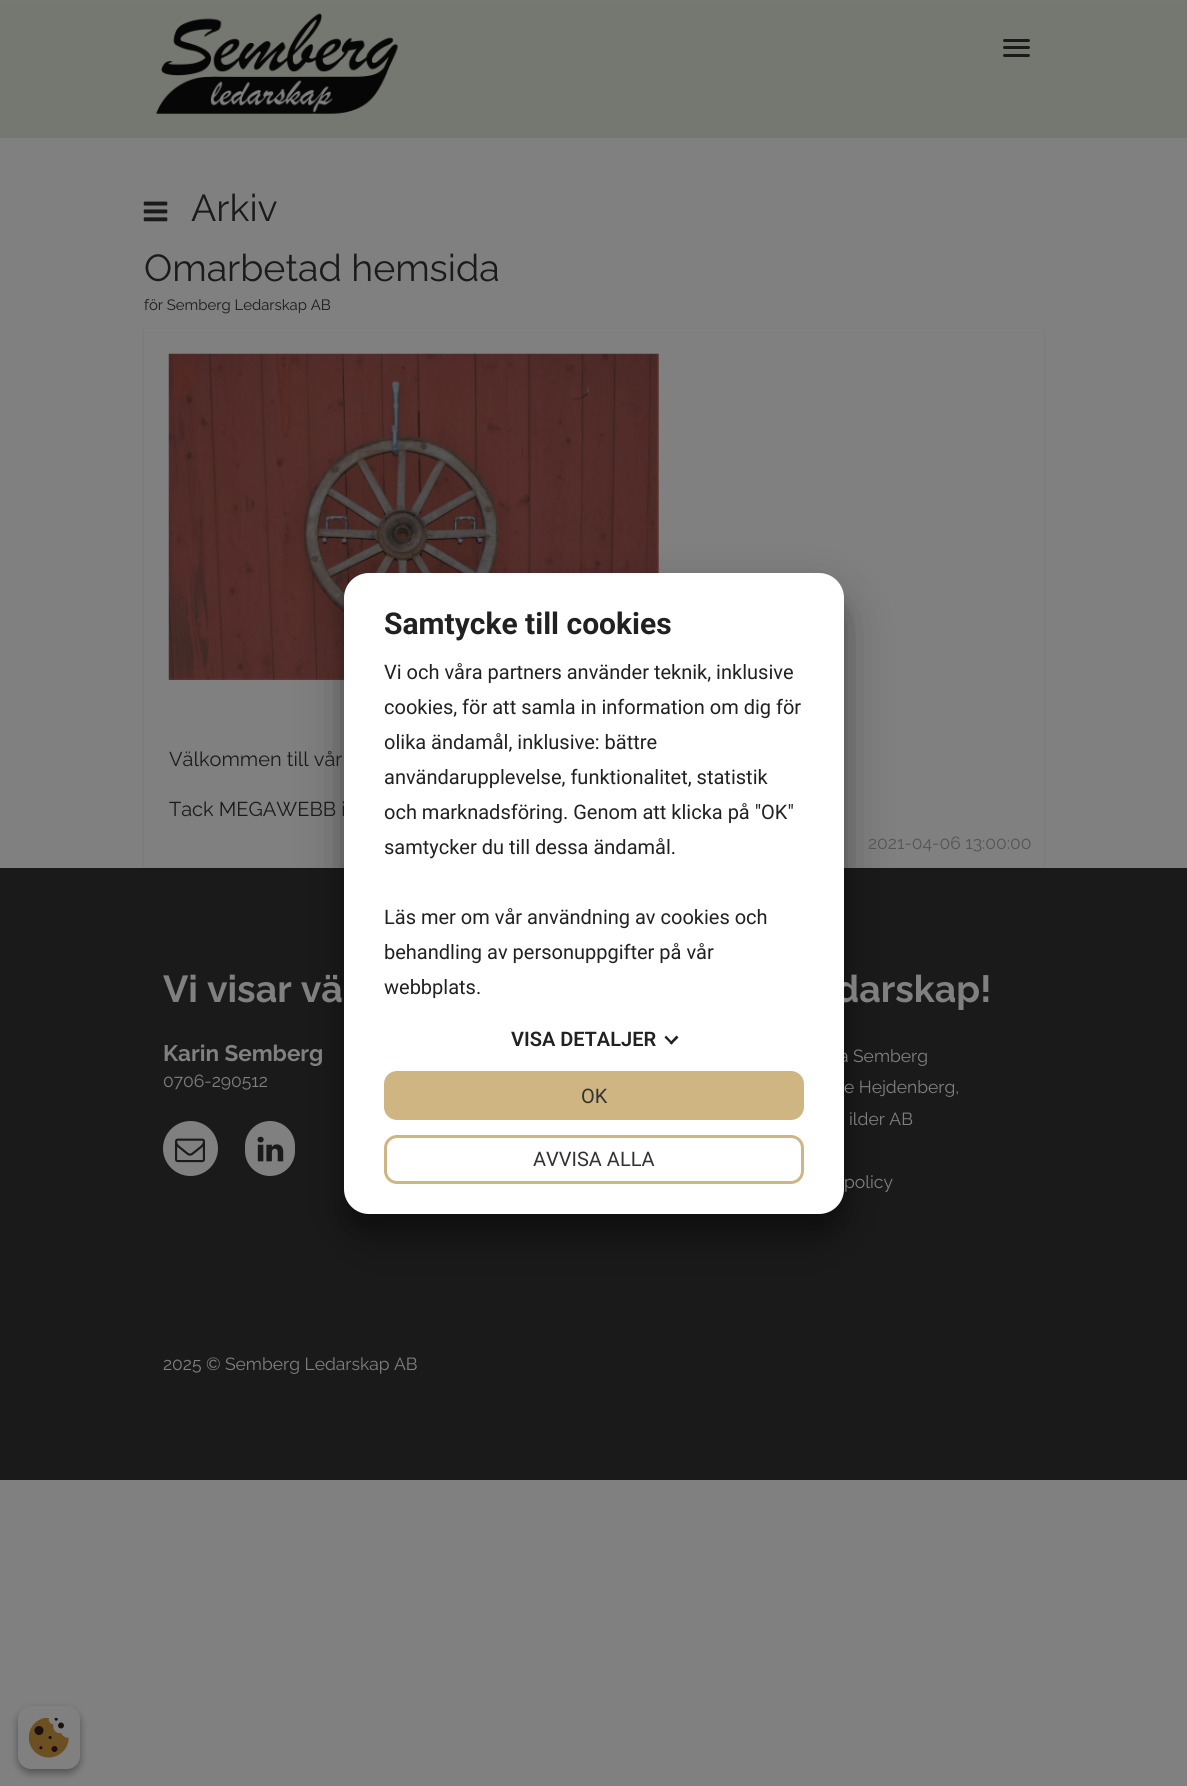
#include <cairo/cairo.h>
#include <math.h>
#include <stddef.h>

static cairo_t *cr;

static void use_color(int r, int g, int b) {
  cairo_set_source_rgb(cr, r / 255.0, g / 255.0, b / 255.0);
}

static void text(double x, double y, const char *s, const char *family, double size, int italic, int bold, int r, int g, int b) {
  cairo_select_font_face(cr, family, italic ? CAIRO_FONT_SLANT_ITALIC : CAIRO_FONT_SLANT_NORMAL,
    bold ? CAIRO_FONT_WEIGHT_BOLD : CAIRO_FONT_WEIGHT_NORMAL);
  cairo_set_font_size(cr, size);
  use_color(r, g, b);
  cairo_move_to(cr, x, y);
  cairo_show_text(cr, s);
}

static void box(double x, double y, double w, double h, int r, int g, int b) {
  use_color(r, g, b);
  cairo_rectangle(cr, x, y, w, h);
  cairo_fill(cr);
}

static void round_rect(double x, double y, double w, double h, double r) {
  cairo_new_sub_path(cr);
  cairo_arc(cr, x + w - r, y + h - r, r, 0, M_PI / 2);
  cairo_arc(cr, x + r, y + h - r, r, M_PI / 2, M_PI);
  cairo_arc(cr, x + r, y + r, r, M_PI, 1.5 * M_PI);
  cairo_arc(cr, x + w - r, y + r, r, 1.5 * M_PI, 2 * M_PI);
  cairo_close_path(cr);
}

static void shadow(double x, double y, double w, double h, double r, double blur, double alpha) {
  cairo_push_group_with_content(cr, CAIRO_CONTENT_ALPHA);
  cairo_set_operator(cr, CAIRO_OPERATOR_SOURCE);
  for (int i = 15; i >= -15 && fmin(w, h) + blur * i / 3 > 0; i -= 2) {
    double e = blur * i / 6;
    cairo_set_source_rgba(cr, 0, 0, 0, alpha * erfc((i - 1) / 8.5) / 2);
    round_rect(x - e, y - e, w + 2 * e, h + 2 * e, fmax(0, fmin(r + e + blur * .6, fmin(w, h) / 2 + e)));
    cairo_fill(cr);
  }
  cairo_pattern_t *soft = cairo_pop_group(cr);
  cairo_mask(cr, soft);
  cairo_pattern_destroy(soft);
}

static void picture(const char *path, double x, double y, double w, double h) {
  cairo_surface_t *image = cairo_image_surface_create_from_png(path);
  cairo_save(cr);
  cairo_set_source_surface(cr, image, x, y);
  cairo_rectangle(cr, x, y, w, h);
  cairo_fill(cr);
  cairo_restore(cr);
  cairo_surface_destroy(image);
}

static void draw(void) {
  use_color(128, 128, 128);
  cairo_paint(cr);
  box(0, 0, 1187, 1, 119, 119, 119);
  box(0, 1, 1187, 137, 117, 120, 112);
  picture("img_01.png", 156, 13, 242, 101);
  use_color(26, 26, 26);
  round_rect(1003, 39, 27, 3, 1.5);
  cairo_fill(cr);
  round_rect(1003, 46, 27, 3, 1.5);
  cairo_fill(cr);
  round_rect(1003, 54, 27, 3, 1.5);
  cairo_fill(cr);
  picture("img_02.png", 143, 201, 25, 21);
  box(0, 868, 1187, 612, 26, 26, 26);
  use_color(0, 0, 0);
  shadow(144, 330, 900, 539, 0, 1, 0.1);
  box(144, 329, 900, 539, 128, 128, 128);
  picture("img_03.png", 168, 353, 491, 327);
  use_color(0, 0, 0);
  shadow(344, 591, 500, 642, 25, 7.5, 0.22);
  use_color(128, 128, 128);
  round_rect(245, 1121, 50, 55, 25);
  cairo_fill(cr);
  picture("img_05.png", 257, 1136, 27, 26);
  use_color(0, 0, 0);
  shadow(344, 596, 500, 642, 25, 24, 0.3);
  use_color(128, 128, 128);
  cairo_arc(cr, 190.5, 1148.5, 27.5, 0, 2 * M_PI);
  cairo_fill(cr);
  picture("img_04.png", 175, 1138, 30, 25);
  use_color(0, 0, 0);
  shadow(18, 1710, 62, 63, 13, 4, 0.23);
  shadow(18, 1710, 62, 63, 13, 4, 0.16);
  use_color(128, 128, 128);
  round_rect(18, 1706, 62, 63, 13);
  cairo_fill(cr);
  picture("img_06.png", 29, 1718, 40, 40);
  text(191, 221, "Arkiv", "Raleway", 37.5, 0, 0, 26, 26, 26);
  text(144, 281, "Omarbetad hemsida", "Raleway", 37.5, 0, 0, 26, 26, 26);
  text(144, 310, "för Semberg Ledarskap AB", "Raleway", 14.9, 0, 0, 26, 26, 26);
  text(169, 766, "Välkommen till vår", "Raleway", 20, 0, 0, 26, 26, 26);
  text(169, 816, "Tack MEGAWEBB i", "Raleway", 20, 0, 0, 26, 26, 26);
  text(868, 849, "2021-04-06 13:00:00", "Raleway", 17.5, 0, 0, 85, 85, 85);
  text(163, 1002, "Vi visar vä", "Raleway", 37.5, 0, 1, 128, 128, 128);
  text(835, 1002, "darskap!", "Raleway", 37.5, 0, 1, 128, 128, 128);
  text(163, 1061, "Karin Semberg", "Raleway", 22.5, 0, 1, 128, 128, 128);
  text(163, 1087, "0706-290512", "Raleway", 17.5, 0, 0, 128, 128, 128);
  text(839, 1062, "a Semberg", "Raleway", 17.5, 0, 0, 128, 128, 128);
  use_color(255, 255, 255);
  round_rect(344, 573, 500, 641, 25);
  cairo_fill(cr);
  use_color(206, 181, 130);
  round_rect(385.5, 1072.5, 417, 46, 11.5);
  cairo_fill_preserve(cr);
  cairo_set_line_width(cr, 3);
  cairo_stroke(cr);
  text(581, 1103, "OK", "Roboto", 20, 0, 0, 51, 51, 51);
  round_rect(385.5, 1136.5, 417, 46, 11.5);
  use_color(206, 181, 130);
  cairo_stroke(cr);
  text(533, 1166, "AVVISA ALLA", "Roboto", 20, 0, 0, 51, 51, 51);
  use_color(33, 33, 33);
  cairo_new_path(cr);
  cairo_move_to(cr, 676.5, 1035.5);
  cairo_line_to(cr, 678.5, 1037.5);
  cairo_line_to(cr, 671.5, 1044.5);
  cairo_line_to(cr, 669.5, 1043);
  cairo_close_path(cr);
  cairo_fill(cr);
  cairo_new_path(cr);
  cairo_move_to(cr, 666, 1035.5);
  cairo_line_to(cr, 673, 1043);
  cairo_line_to(cr, 671.5, 1044.5);
  cairo_line_to(cr, 664.5, 1037.5);
  cairo_close_path(cr);
  cairo_fill(cr);
  text(511, 1046, "VISA DETALJER", "Roboto SemiBold", 20, 0, 0, 33, 33, 33);
  text(384, 994, "webbplats.", "Roboto", 20, 0, 0, 33, 33, 33);
  text(384, 959, "behandling av personuppgifter på vår", "Roboto", 20, 0, 0, 33, 33, 33);
  text(384, 924, "Läs mer om vår användning av cookies och", "Roboto", 20, 0, 0, 33, 33, 33);
  text(384, 854, "samtycker du till dessa ändamål.", "Roboto", 20, 0, 0, 33, 33, 33);
  text(384, 819, "och marknadsföring. Genom att klicka på \"OK\"", "Roboto", 20, 0, 0, 33, 33, 33);
  text(384, 784, "användarupplevelse, funktionalitet, statistik", "Roboto", 20, 0, 0, 33, 33, 33);
  text(384, 749, "olika ändamål, inklusive: bättre", "Roboto", 20, 0, 0, 33, 33, 33);
  text(384, 714, "cookies, för att samla in information om dig för", "Roboto", 20, 0, 0, 33, 33, 33);
  text(384, 679, "Vi och våra partners använder teknik, inklusive", "Roboto", 20, 0, 0, 33, 33, 33);
  text(384, 634, "Samtycke till cookies", "Roboto", 30, 0, 1, 33, 33, 33);
  text(844, 1093, "e Hejdenberg,", "Raleway", 17.5, 0, 0, 128, 128, 128);
  text(849, 1125, "ilder AB", "Raleway", 17.5, 0, 0, 128, 128, 128);
  text(844, 1188, "policy", "Raleway", 17.5, 0, 0, 128, 128, 128);
  text(163, 1370, "2025 © Semberg Ledarskap AB", "Raleway", 17.5, 0, 0, 128, 128, 128);
}

int main(void) {
  cairo_surface_t *surface = cairo_image_surface_create(CAIRO_FORMAT_RGB24, 1187, 1786);
  cr = cairo_create(surface);
  cairo_font_options_t *options = cairo_font_options_create();
  cairo_font_options_set_hint_metrics(options, CAIRO_HINT_METRICS_OFF);
  cairo_font_options_set_hint_style(options, CAIRO_HINT_STYLE_NONE);
  cairo_set_font_options(cr, options);
  cairo_set_miter_limit(cr, 4);
  draw();
  cairo_surface_write_to_png(surface, "out.png");
  cairo_font_options_destroy(options);
  cairo_destroy(cr);
  cairo_surface_destroy(surface);
  return 0;
}
